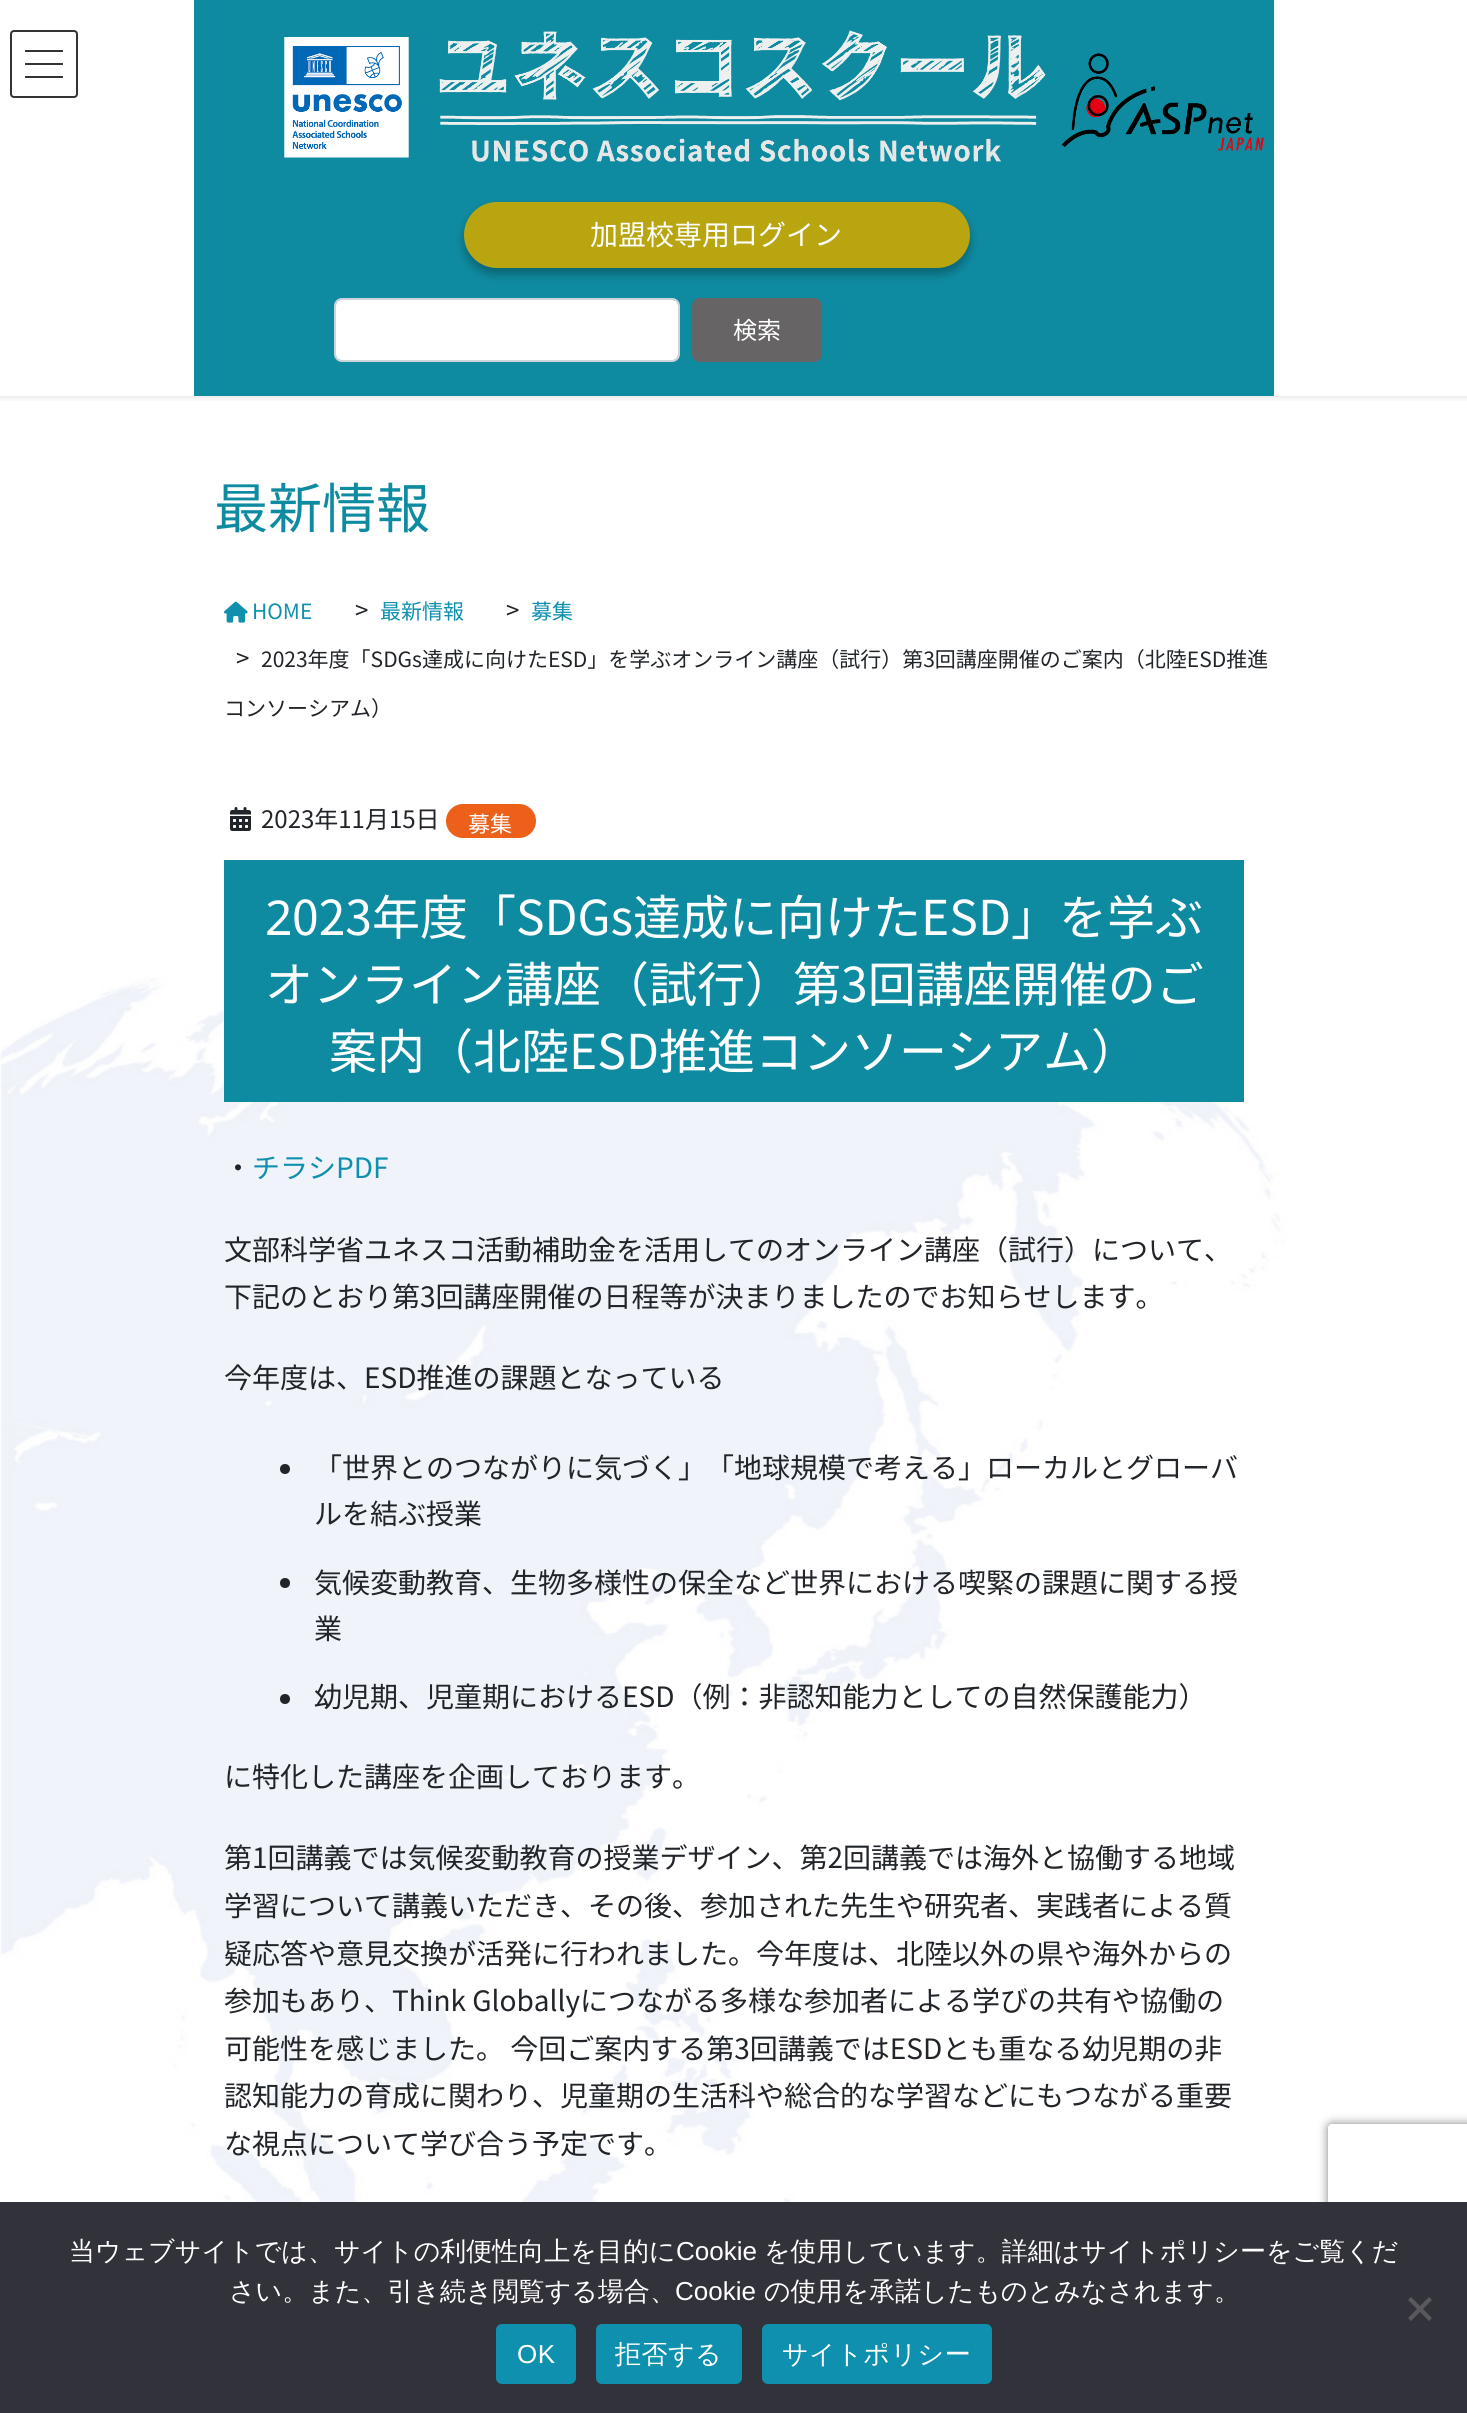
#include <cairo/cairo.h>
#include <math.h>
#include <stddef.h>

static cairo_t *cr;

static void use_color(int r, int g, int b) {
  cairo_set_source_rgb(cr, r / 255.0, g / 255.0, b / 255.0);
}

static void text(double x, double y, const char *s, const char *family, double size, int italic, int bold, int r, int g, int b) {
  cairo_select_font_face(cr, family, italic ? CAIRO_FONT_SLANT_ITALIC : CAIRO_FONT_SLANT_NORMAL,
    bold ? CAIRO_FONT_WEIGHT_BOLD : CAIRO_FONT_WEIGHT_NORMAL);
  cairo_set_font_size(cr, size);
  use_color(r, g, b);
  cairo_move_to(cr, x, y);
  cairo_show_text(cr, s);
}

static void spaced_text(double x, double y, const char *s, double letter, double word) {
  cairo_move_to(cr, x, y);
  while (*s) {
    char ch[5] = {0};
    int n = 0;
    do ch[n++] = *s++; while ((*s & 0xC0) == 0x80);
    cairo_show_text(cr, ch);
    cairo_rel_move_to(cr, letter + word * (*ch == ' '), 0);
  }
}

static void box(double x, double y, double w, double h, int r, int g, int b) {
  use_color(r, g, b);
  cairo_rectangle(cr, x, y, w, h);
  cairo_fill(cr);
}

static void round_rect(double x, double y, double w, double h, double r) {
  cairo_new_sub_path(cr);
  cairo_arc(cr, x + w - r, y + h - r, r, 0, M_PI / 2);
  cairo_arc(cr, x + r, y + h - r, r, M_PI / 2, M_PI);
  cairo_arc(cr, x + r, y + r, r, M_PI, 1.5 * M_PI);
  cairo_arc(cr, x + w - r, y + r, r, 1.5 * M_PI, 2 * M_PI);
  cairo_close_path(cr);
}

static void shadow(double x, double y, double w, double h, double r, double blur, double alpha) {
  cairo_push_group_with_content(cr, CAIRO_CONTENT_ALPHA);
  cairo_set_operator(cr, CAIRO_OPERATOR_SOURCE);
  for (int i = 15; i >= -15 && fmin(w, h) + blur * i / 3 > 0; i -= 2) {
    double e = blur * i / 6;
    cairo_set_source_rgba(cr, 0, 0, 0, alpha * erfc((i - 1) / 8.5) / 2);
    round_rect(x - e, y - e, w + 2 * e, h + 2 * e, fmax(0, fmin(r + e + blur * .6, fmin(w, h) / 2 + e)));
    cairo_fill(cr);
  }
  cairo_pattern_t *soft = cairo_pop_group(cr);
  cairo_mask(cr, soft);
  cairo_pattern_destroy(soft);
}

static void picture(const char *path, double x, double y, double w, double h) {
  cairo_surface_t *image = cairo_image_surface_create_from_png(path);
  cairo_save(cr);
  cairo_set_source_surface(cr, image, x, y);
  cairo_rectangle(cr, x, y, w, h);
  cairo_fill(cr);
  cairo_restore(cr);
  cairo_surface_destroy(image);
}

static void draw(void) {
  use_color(255, 255, 255);
  cairo_paint(cr);
  picture("img_01.png", 0, 919, 1467, 1283);
  cairo_save(cr);
  cairo_rectangle(cr, 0, 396, 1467, 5);
  cairo_clip(cr);
  use_color(0, 0, 0);
  shadow(0, 2, 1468, 396, 0, 3, 0.1);
  cairo_restore(cr);
  box(25, 50, 38, 2, 51, 51, 51);
  box(25, 63, 38, 2, 51, 51, 51);
  box(25, 76, 38, 2, 51, 51, 51);
  round_rect(11, 31, 66, 66, 3);
  cairo_stroke(cr);
  box(194, 0, 1080, 396, 15, 139, 161);
  picture("img_02.png", 284, 30, 980, 132);
  use_color(0, 0, 0);
  shadow(464, 208, 506, 66, 33, 5, 0.3);
  use_color(184, 165, 16);
  round_rect(464, 202, 506, 66, 33);
  cairo_fill(cr);
  use_color(255, 255, 255);
  round_rect(336, 300, 342, 60, 5);
  cairo_fill(cr);
  round_rect(335, 299, 344, 62, 7);
  use_color(206, 212, 218);
  cairo_stroke(cr);
  use_color(102, 100, 100);
  round_rect(692, 298, 130, 64, 8);
  cairo_fill(cr);
  picture("img_03.png", 224, 601, 24, 22);
  picture("img_04.png", 230, 807, 21, 24);
  use_color(237, 96, 26);
  round_rect(446, 804, 90, 34, 17);
  cairo_fill(cr);
  box(224, 860, 1020, 242, 15, 139, 161);
  use_color(33, 37, 41);
  cairo_arc(cr, 285, 1469, 5, 0, 2 * M_PI);
  cairo_fill(cr);
  cairo_arc(cr, 285, 1583, 5, 0, 2 * M_PI);
  cairo_fill(cr);
  cairo_arc(cr, 285, 1699, 5, 0, 2 * M_PI);
  cairo_fill(cr);
  cairo_save(cr);
  cairo_set_fill_rule(cr, CAIRO_FILL_RULE_EVEN_ODD);
  cairo_new_path(cr);
  cairo_move_to(cr, 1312, 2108);
  cairo_line_to(cr, 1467, 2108);
  cairo_line_to(cr, 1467, 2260);
  cairo_line_to(cr, 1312, 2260);
  cairo_close_path(cr);
  cairo_move_to(cr, 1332, 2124);
  cairo_line_to(cr, 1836, 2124);
  cairo_curve_to(cr, 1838, 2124, 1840, 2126, 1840, 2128);
  cairo_line_to(cr, 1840, 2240);
  cairo_curve_to(cr, 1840, 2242, 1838, 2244, 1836, 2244);
  cairo_line_to(cr, 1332, 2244);
  cairo_curve_to(cr, 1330, 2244, 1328, 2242, 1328, 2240);
  cairo_line_to(cr, 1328, 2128);
  cairo_curve_to(cr, 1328, 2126, 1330, 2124, 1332, 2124);
  cairo_close_path(cr);
  cairo_clip(cr);
  use_color(128, 128, 128);
  shadow(1328, 2124, 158, 120, 4, 5, 1);
  cairo_restore(cr);
  box(0, 2202, 1467, 211, 50, 50, 58);
  use_color(89, 89, 93);
  cairo_new_path(cr);
  cairo_move_to(cr, 1429, 2297);
  cairo_line_to(cr, 1432, 2300);
  cairo_line_to(cr, 1411, 2321);
  cairo_line_to(cr, 1408, 2318);
  cairo_close_path(cr);
  cairo_fill(cr);
  cairo_new_path(cr);
  cairo_move_to(cr, 1408, 2300);
  cairo_line_to(cr, 1411, 2297);
  cairo_line_to(cr, 1432, 2318);
  cairo_line_to(cr, 1429, 2321);
  cairo_close_path(cr);
  cairo_fill(cr);
  use_color(14, 144, 174);
  round_rect(496, 2324, 80, 60, 6);
  cairo_fill(cr);
  round_rect(596, 2324, 146, 60, 6);
  cairo_fill(cr);
  round_rect(762, 2324, 230, 60, 6);
  cairo_fill(cr);
  text(590, 245, "加盟校専用ログイン", "Noto Sans JP", 28, 0, 0, 255, 255, 255);
  text(733, 339, "検索", "Noto Sans JP", 24, 0, 0, 255, 255, 255);
  text(214, 528, "最新情報", "Noto Sans JP", 54, 0, 0, 15, 139, 161);
  text(252, 619, "HOME", "Noto Sans JP", 21, 0, 0, 14, 144, 174);
  text(355, 619, ">", "Noto Sans JP", 24, 0, 0, 33, 37, 41);
  text(380, 619, "最新情報", "Noto Sans JP", 21, 0, 0, 14, 144, 174);
  text(506, 619, ">", "Noto Sans JP", 24, 0, 0, 33, 37, 41);
  text(531, 619, "募集", "Noto Sans JP", 21, 0, 0, 14, 144, 174);
  text(236, 667, ">", "Noto Sans JP", 24, 0, 0, 33, 37, 41);
  text(261, 667, "2023年度「SDGs達成に向けたESD」を学ぶオンライン講座（試行）第3回講座開催のご案内（北陸ESD推進", "Noto Sans JP", 21, 0, 0, 33, 37, 41);
  text(224, 716, "コンソーシアム）", "Noto Sans JP", 21, 0, 0, 33, 37, 41);
  text(261, 828, "2023年11月15日", "Noto Sans JP", 24, 0, 0, 33, 37, 41);
  text(468, 832, "募集", "Noto Sans JP", 22, 0, 0, 255, 255, 255);
  text(265, 935, "2", "Noto Sans", 48, 0, 0, 255, 255, 255);
  text(292, 935, "023年度「SDGs達成に向けたESD」を学ぶ", "Noto Sans JP", 48, 0, 0, 255, 255, 255);
  text(265, 1002, "オンライン講座（試行）第3回講座開催のご", "Noto Sans JP", 48, 0, 0, 255, 255, 255);
  text(329, 1069, "案内（北陸ESD推進コンソーシアム）", "Noto Sans JP", 48, 0, 0, 255, 255, 255);
  text(224, 1178, "・", "Noto Sans JP", 28, 0, 0, 33, 37, 41);
  text(252, 1178, "チラシPDF", "Noto Sans JP", 28, 0, 0, 14, 144, 174);
  text(224, 1260, "文部科学省ユネスコ活動補助金を活用してのオンライン講座（試行）について、", "Noto Sans JP", 28, 0, 0, 33, 37, 41);
  text(224, 1307, "下記のとおり第3回講座開催の日程等が決まりましたのでお知らせします。", "Noto Sans JP", 28, 0, 0, 33, 37, 41);
  text(224, 1388, "今年度は、ESD推進の課題となっている", "Noto Sans JP", 28, 0, 0, 33, 37, 41);
  text(314, 1478, "「世界とのつながりに気づく」「地球規模で考える」ローカルとグローバ", "Noto Sans JP", 28, 0, 0, 33, 37, 41);
  text(314, 1524, "ルを結ぶ授業", "Noto Sans JP", 28, 0, 0, 33, 37, 41);
  text(314, 1593, "気候変動教育、生物多様性の保全など世界における喫緊の課題に関する授", "Noto Sans JP", 28, 0, 0, 33, 37, 41);
  text(314, 1639, "業", "Noto Sans JP", 28, 0, 0, 33, 37, 41);
  text(314, 1707, "幼児期、児童期におけるESD（例：非認知能力としての自然保護能力）", "Noto Sans JP", 28, 0, 0, 33, 37, 41);
  text(224, 1787, "に特化した講座を企画しております。", "Noto Sans JP", 28, 0, 0, 33, 37, 41);
  text(224, 1868, "第1回講義では気候変動教育の授業デザイン、第2回講義では海外と協働する地域", "Noto Sans JP", 28, 0, 0, 33, 37, 41);
  text(224, 1916, "学習について講義いただき、その後、参加された先生や研究者、実践者による質", "Noto Sans JP", 28, 0, 0, 33, 37, 41);
  text(224, 1964, "疑応答や意見交換が活発に行われました。今年度は、北陸以外の県や海外からの", "Noto Sans JP", 28, 0, 0, 33, 37, 41);
  text(224, 2011, "参加もあり、Think Globallyにつながる多様な参加者による学びの共有や協働の", "Noto Sans JP", 28, 0, 0, 33, 37, 41);
  text(224, 2059, "可能性を感じました。 今回ご案内する第3回講義ではESDとも重なる幼児期の非", "Noto Sans JP", 28, 0, 0, 33, 37, 41);
  text(224, 2106, "認知能力の育成に関わり、児童期の生活科や総合的な学習などにもつながる重要", "Noto Sans JP", 28, 0, 0, 33, 37, 41);
  text(224, 2154, "な視点について学び合う予定です。", "Noto Sans JP", 28, 0, 0, 33, 37, 41);
  text(69, 2260, "当ウェブサイトでは、サイトの利便性向上を目的に", "WenQuanYi Zen Hei Medium", 26, 0, 0, 255, 255, 255);
  text(676, 2260, "Cookie", "Liberation Sans", 26, 0, 0, 255, 255, 255);
  text(764, 2260, "を使用しています。詳細はサイトポリシーをご覧くだ", "WenQuanYi Zen Hei Medium", 26, 0, 0, 255, 255, 255);
  text(229, 2300, "さい。また、引き続き閲覧する場合、", "WenQuanYi Zen Hei Medium", 26, 0, 0, 255, 255, 255);
  text(675, 2300, "Cookie", "Liberation Sans", 26, 0, 0, 255, 255, 255);
  text(764, 2300, "の使用を承諾したものとみなされます。", "WenQuanYi Zen Hei Medium", 26, 0, 0, 255, 255, 255);
  cairo_select_font_face(cr, "Liberation Sans", CAIRO_FONT_SLANT_NORMAL, CAIRO_FONT_WEIGHT_NORMAL);
  spaced_text(517, 2363, "OK", 0.5, 0);
  cairo_select_font_face(cr, "WenQuanYi Zen Hei Medium", CAIRO_FONT_SLANT_NORMAL, CAIRO_FONT_WEIGHT_NORMAL);
  spaced_text(615, 2363, "拒否する", 0.5, 0);
  spaced_text(782, 2363, "サイトポリシー", 0.5, 0);
}

int main(void) {
  cairo_surface_t *surface = cairo_image_surface_create(CAIRO_FORMAT_RGB24, 1467, 2413);
  cr = cairo_create(surface);
  cairo_font_options_t *options = cairo_font_options_create();
  cairo_font_options_set_hint_metrics(options, CAIRO_HINT_METRICS_OFF);
  cairo_font_options_set_hint_style(options, CAIRO_HINT_STYLE_NONE);
  cairo_set_font_options(cr, options);
  cairo_set_miter_limit(cr, 4);
  draw();
  cairo_surface_write_to_png(surface, "out.png");
  cairo_font_options_destroy(options);
  cairo_destroy(cr);
  cairo_surface_destroy(surface);
  return 0;
}
